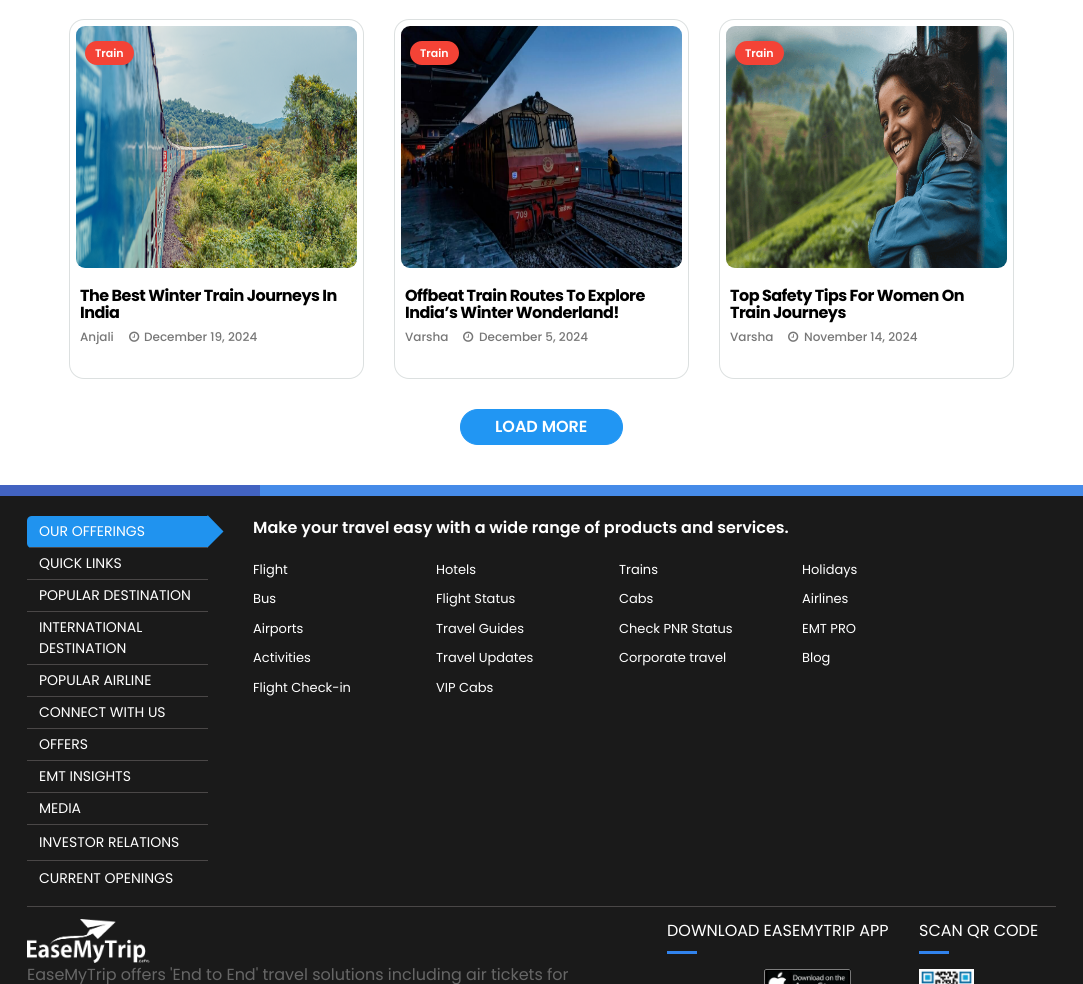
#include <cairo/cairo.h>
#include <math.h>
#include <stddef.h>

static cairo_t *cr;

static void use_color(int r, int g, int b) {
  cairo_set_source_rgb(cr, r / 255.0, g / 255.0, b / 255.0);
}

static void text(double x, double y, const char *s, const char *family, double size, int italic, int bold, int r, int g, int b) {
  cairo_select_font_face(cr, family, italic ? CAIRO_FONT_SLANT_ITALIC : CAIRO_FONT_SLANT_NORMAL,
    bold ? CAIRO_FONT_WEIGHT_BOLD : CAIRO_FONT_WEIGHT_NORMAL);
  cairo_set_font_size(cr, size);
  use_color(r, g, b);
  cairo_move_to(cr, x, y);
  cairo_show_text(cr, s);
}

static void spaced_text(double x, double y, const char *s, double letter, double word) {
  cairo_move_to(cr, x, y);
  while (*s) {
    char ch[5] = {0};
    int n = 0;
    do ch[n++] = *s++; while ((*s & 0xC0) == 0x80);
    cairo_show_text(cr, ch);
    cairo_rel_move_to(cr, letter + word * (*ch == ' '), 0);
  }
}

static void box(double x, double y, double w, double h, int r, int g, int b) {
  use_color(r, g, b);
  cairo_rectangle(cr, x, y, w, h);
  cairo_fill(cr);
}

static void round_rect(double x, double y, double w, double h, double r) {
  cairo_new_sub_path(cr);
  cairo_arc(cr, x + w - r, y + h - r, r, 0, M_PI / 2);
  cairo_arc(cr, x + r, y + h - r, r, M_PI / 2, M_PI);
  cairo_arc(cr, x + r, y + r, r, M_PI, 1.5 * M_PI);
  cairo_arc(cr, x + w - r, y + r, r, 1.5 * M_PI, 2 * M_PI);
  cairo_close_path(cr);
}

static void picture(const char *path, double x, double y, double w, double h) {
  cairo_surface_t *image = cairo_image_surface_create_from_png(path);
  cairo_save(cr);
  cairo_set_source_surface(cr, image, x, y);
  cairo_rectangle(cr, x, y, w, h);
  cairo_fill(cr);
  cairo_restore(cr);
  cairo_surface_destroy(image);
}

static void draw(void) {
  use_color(255, 255, 255);
  cairo_paint(cr);
  round_rect(69.5, 19.5, 294, 359, 14.5);
  use_color(220, 224, 224);
  cairo_set_line_width(cr, 1);
  cairo_stroke(cr);
  picture("img_01.png", 76, 26, 281, 242);
  use_color(244, 67, 54);
  round_rect(85, 41, 49, 24, 12);
  cairo_fill(cr);
  picture("img_02.png", 129, 331, 11, 11);
  round_rect(394.5, 19.5, 294, 359, 14.5);
  use_color(220, 224, 224);
  cairo_stroke(cr);
  picture("img_03.png", 401, 26, 281, 242);
  use_color(244, 67, 54);
  round_rect(410, 41, 49, 24, 12);
  cairo_fill(cr);
  picture("img_02.png", 463, 331, 11, 11);
  round_rect(719.5, 19.5, 294, 359, 14.5);
  use_color(220, 224, 224);
  cairo_stroke(cr);
  picture("img_04.png", 726, 26, 281, 242);
  use_color(244, 67, 54);
  round_rect(735, 41, 49, 24, 12);
  cairo_fill(cr);
  picture("img_02.png", 788, 331, 11, 11);
  use_color(33, 150, 243);
  round_rect(460.5, 409.5, 162, 35, 17.5);
  cairo_fill_preserve(cr);
  cairo_stroke(cr);
  box(0, 496, 1083, 488, 26, 26, 26);
  box(0, 485, 260, 11, 66, 99, 193);
  box(260, 485, 823, 11, 70, 139, 232);
  box(27, 906, 1029, 1, 74, 71, 71);
  use_color(32, 147, 239);
  cairo_new_path(cr);
  cairo_move_to(cr, 32, 516);
  cairo_line_to(cr, 208, 516);
  cairo_line_to(cr, 208, 548);
  cairo_line_to(cr, 32, 548);
  cairo_curve_to(cr, 29, 548, 27, 546, 27, 543);
  cairo_line_to(cr, 27, 521);
  cairo_curve_to(cr, 27, 518, 29, 516, 32, 516);
  cairo_close_path(cr);
  cairo_fill(cr);
  box(30, 547, 178, 1, 74, 71, 71);
  use_color(32, 147, 239);
  cairo_new_path(cr);
  cairo_move_to(cr, 223.5, 531.5);
  cairo_line_to(cr, 207.5, 547.5);
  cairo_line_to(cr, 207.5, 515);
  cairo_close_path(cr);
  cairo_fill(cr);
  box(27, 579, 181, 1, 74, 71, 71);
  box(27, 611, 181, 1, 74, 71, 71);
  box(27, 664, 181, 1, 74, 71, 71);
  box(27, 696, 181, 1, 74, 71, 71);
  box(27, 728, 181, 1, 74, 71, 71);
  box(27, 760, 181, 1, 74, 71, 71);
  box(27, 792, 181, 1, 74, 71, 71);
  box(27, 824, 181, 1, 74, 71, 71);
  box(27, 860, 181, 1, 74, 71, 71);
  box(667, 951, 30, 3, 49, 131, 237);
  picture("img_05.png", 764, 969, 87, 15);
  box(919, 951, 30, 3, 49, 131, 237);
  picture("img_06.png", 919, 969, 55, 15);
  picture("img_07.png", 27, 919, 123, 44);
  text(95, 57, "Train", "Poppins SemiBold", 11, 0, 0, 255, 255, 255);
  cairo_select_font_face(cr, "Poppins", CAIRO_FONT_SLANT_NORMAL, CAIRO_FONT_WEIGHT_BOLD);
  cairo_set_font_size(cr, 16);
  use_color(0, 0, 0);
  spaced_text(80, 301, "The Best Winter Train Journeys In", -0.5, 0);
  spaced_text(80, 318, "India", -0.5, 0);
  text(80, 341, "Anjali", "Poppins Medium", 12, 0, 0, 119, 119, 119);
  text(144, 341, "December 19, 2024", "Poppins Medium", 12, 0, 0, 119, 119, 119);
  text(420, 57, "Train", "Poppins SemiBold", 11, 0, 0, 255, 255, 255);
  cairo_select_font_face(cr, "Poppins", CAIRO_FONT_SLANT_NORMAL, CAIRO_FONT_WEIGHT_BOLD);
  cairo_set_font_size(cr, 16);
  use_color(0, 0, 0);
  spaced_text(405, 301, "Offbeat Train Routes To Explore", -0.5, 0);
  spaced_text(405, 318, "India’s Winter Wonderland!", -0.5, 0);
  text(405, 341, "Varsha", "Poppins Medium", 12, 0, 0, 119, 119, 119);
  text(479, 341, "December 5, 2024", "Poppins Medium", 12, 0, 0, 119, 119, 119);
  text(745, 57, "Train", "Poppins SemiBold", 11, 0, 0, 255, 255, 255);
  cairo_select_font_face(cr, "Poppins", CAIRO_FONT_SLANT_NORMAL, CAIRO_FONT_WEIGHT_BOLD);
  cairo_set_font_size(cr, 16);
  use_color(0, 0, 0);
  spaced_text(730, 301, "Top Safety Tips For Women On", -0.5, 0);
  spaced_text(730, 318, "Train Journeys", -0.5, 0);
  text(730, 341, "Varsha", "Poppins Medium", 12, 0, 0, 119, 119, 119);
  text(804, 341, "November 14, 2024", "Poppins Medium", 12, 0, 0, 119, 119, 119);
  text(495, 432, "LOAD MORE", "Poppins SemiBold", 16, 0, 0, 255, 255, 255);
  text(39, 536, "OUR OFFERINGS", "Poppins", 14, 0, 0, 255, 255, 255);
  text(39, 568, "QUICK LINKS", "Poppins", 14, 0, 0, 255, 255, 255);
  text(39, 600, "POPULAR DESTINATION", "Poppins", 14, 0, 0, 255, 255, 255);
  text(39, 632, "INTERNATIONAL", "Poppins", 14, 0, 0, 255, 255, 255);
  text(39, 653, "DESTINATION", "Poppins", 14, 0, 0, 255, 255, 255);
  text(39, 685, "POPULAR AIRLINE", "Poppins", 14, 0, 0, 255, 255, 255);
  text(39, 717, "CONNECT WITH US", "Poppins", 14, 0, 0, 255, 255, 255);
  text(39, 749, "OFFERS", "Poppins", 14, 0, 0, 255, 255, 255);
  text(39, 781, "EMT INSIGHTS", "Poppins", 14, 0, 0, 255, 255, 255);
  text(39, 813, "MEDIA", "Poppins", 14, 0, 0, 255, 255, 255);
  text(39, 847, "INVESTOR RELATIONS", "Poppins", 14, 0, 0, 255, 255, 255);
  text(39, 883, "CURRENT OPENINGS", "Poppins", 14, 0, 0, 255, 255, 255);
  text(253, 533, "Make your travel easy with a wide range of products and services.", "Poppins SemiBold", 16, 0, 0, 255, 255, 255);
  text(253, 574, "Flight", "Poppins", 13, 0, 0, 255, 255, 255);
  text(436, 574, "Hotels", "Poppins", 13, 0, 0, 255, 255, 255);
  text(619, 574, "Trains", "Poppins", 13, 0, 0, 255, 255, 255);
  text(802, 574, "Holidays", "Poppins", 13, 0, 0, 255, 255, 255);
  text(253, 603, "Bus", "Poppins", 13, 0, 0, 255, 255, 255);
  text(436, 603, "Flight Status", "Poppins", 13, 0, 0, 255, 255, 255);
  text(619, 603, "Cabs", "Poppins", 13, 0, 0, 255, 255, 255);
  text(802, 603, "Airlines", "Poppins", 13, 0, 0, 255, 255, 255);
  text(253, 633, "Airports", "Poppins", 13, 0, 0, 255, 255, 255);
  text(436, 633, "Travel Guides", "Poppins", 13, 0, 0, 255, 255, 255);
  text(619, 633, "Check PNR Status", "Poppins", 13, 0, 0, 255, 255, 255);
  text(802, 633, "EMT PRO", "Poppins", 13, 0, 0, 255, 255, 255);
  text(253, 662, "Activities", "Poppins", 13, 0, 0, 255, 255, 255);
  text(436, 662, "Travel Updates", "Poppins", 13, 0, 0, 255, 255, 255);
  text(619, 662, "Corporate travel", "Poppins", 13, 0, 0, 255, 255, 255);
  text(802, 662, "Blog", "Poppins", 13, 0, 0, 255, 255, 255);
  text(253, 692, "Flight Check-in", "Poppins", 13, 0, 0, 255, 255, 255);
  text(436, 692, "VIP Cabs", "Poppins", 13, 0, 0, 255, 255, 255);
  text(667, 936, "DOWNLOAD EASEMYTRIP APP", "Poppins", 16, 0, 0, 255, 255, 255);
  text(919, 936, "SCAN QR CODE", "Poppins", 16, 0, 0, 255, 255, 255);
  text(27, 980, "EaseMyTrip offers 'End to End' travel solutions including air tickets for", "Poppins", 16, 0, 0, 102, 102, 102);
}

int main(void) {
  cairo_surface_t *surface = cairo_image_surface_create(CAIRO_FORMAT_RGB24, 1083, 984);
  cr = cairo_create(surface);
  cairo_font_options_t *options = cairo_font_options_create();
  cairo_font_options_set_hint_metrics(options, CAIRO_HINT_METRICS_OFF);
  cairo_font_options_set_hint_style(options, CAIRO_HINT_STYLE_NONE);
  cairo_set_font_options(cr, options);
  cairo_set_miter_limit(cr, 4);
  draw();
  cairo_surface_write_to_png(surface, "out.png");
  cairo_font_options_destroy(options);
  cairo_destroy(cr);
  cairo_surface_destroy(surface);
  return 0;
}
